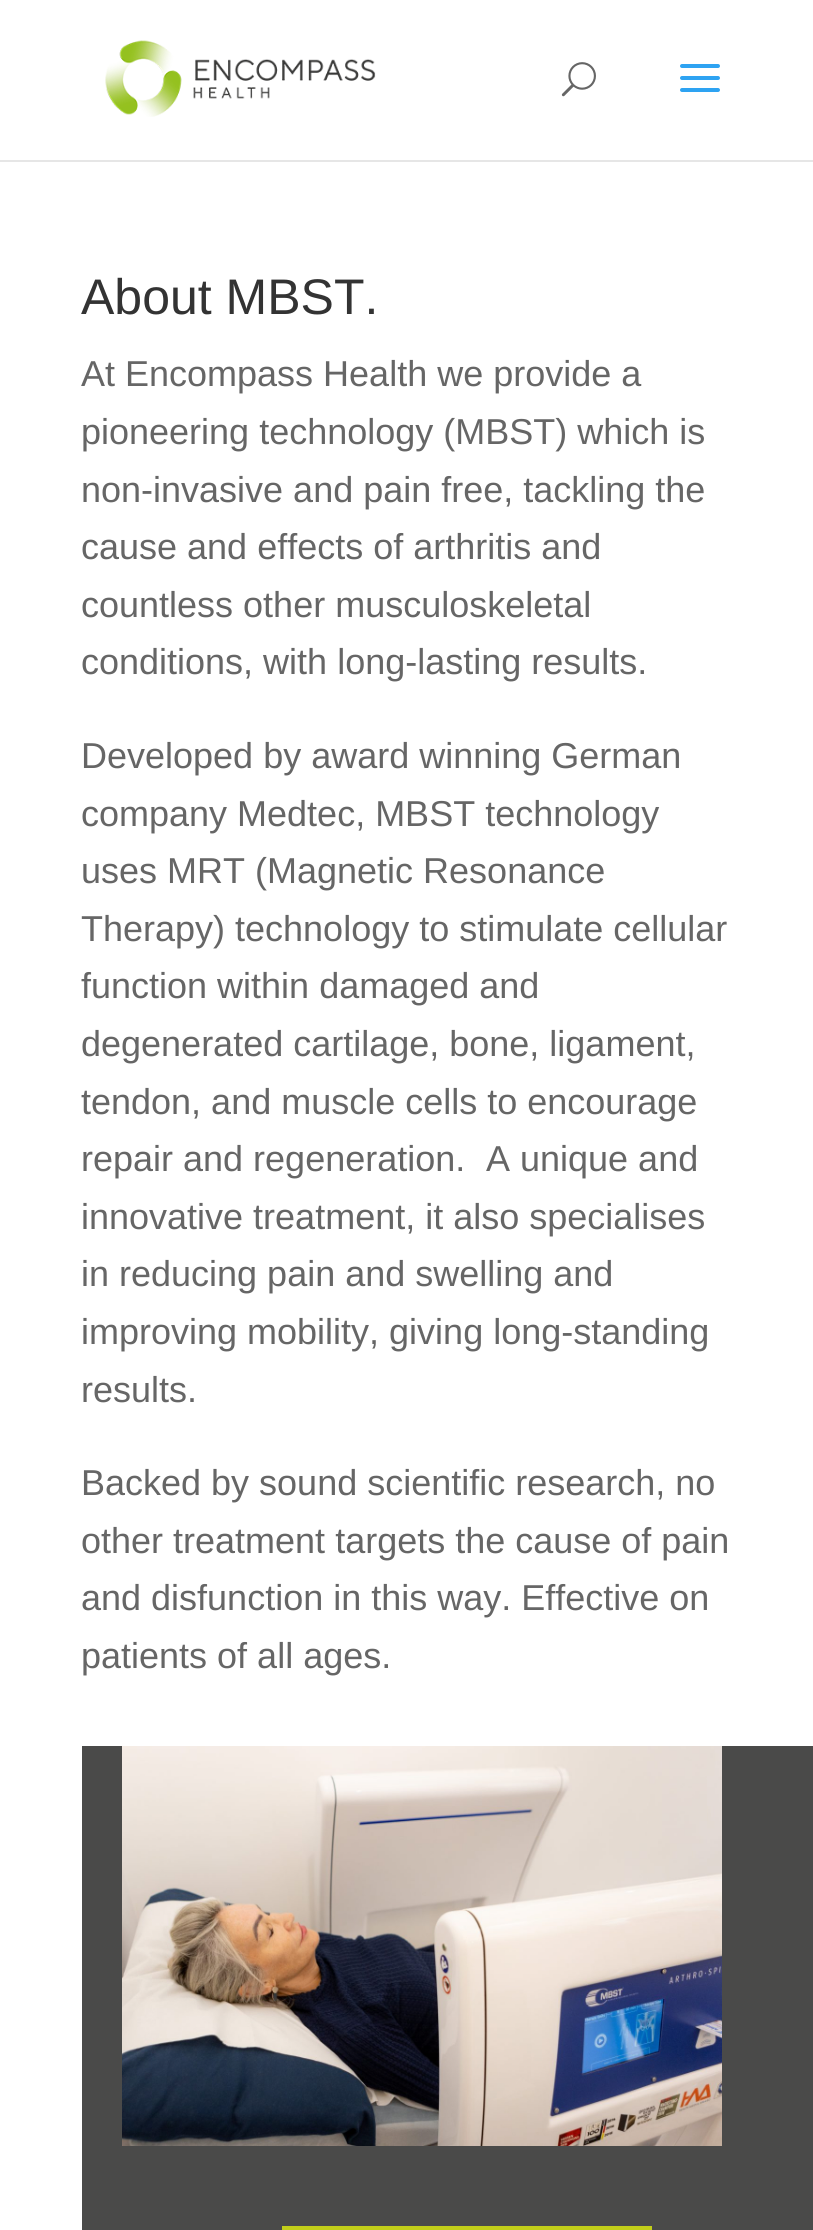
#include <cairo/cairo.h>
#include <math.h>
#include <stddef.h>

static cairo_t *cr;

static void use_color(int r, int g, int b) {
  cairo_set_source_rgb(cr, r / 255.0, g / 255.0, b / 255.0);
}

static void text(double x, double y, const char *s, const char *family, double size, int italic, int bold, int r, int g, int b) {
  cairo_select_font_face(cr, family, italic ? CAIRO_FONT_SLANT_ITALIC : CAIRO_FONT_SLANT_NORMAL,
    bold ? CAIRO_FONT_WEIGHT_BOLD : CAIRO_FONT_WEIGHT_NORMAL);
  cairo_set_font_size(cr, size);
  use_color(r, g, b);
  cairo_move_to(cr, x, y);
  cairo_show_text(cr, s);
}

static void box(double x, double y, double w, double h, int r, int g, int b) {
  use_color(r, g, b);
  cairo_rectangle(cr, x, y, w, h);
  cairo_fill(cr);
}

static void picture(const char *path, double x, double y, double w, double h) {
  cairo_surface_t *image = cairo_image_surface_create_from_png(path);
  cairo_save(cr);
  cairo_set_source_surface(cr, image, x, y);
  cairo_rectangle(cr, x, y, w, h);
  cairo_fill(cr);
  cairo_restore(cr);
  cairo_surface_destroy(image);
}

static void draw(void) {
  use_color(255, 255, 255);
  cairo_paint(cr);
  box(0, 160, 813, 2, 230, 230, 230);
  picture("img_01.png", 105, 40, 271, 77);
  picture("img_02.png", 561, 62, 35, 35);
  picture("img_03.png", 680, 64, 40, 28);
  box(82, 1746, 731, 484, 74, 74, 73);
  picture("img_04.png", 122, 1746, 600, 400);
  box(282, 2226, 370, 4, 194, 206, 25);
  text(81, 314, "About MBST.", "Liberation Sans", 50, 0, 0, 51, 51, 51);
  text(81, 386, "At Encompass Health we provide a", "Liberation Sans", 36, 0, 0, 102, 102, 102);
  text(81, 444, "pioneering technology (MBST) which is", "Liberation Sans", 36, 0, 0, 102, 102, 102);
  text(81, 502, "non-invasive and pain free, tackling the", "Liberation Sans", 36, 0, 0, 102, 102, 102);
  text(81, 559, "cause and effects of arthritis and", "Liberation Sans", 36, 0, 0, 102, 102, 102);
  text(81, 617, "countless other musculoskeletal", "Liberation Sans", 36, 0, 0, 102, 102, 102);
  text(81, 674, "conditions, with long-lasting results.", "Liberation Sans", 36, 0, 0, 102, 102, 102);
  text(81, 768, "Developed by award winning German", "Liberation Sans", 36, 0, 0, 102, 102, 102);
  text(81, 826, "company Medtec, MBST technology", "Liberation Sans", 36, 0, 0, 102, 102, 102);
  text(81, 883, "uses MRT (Magnetic Resonance", "Liberation Sans", 36, 0, 0, 102, 102, 102);
  text(81, 941, "Therapy) technology to stimulate cellular", "Liberation Sans", 36, 0, 0, 102, 102, 102);
  text(81, 998, "function within damaged and", "Liberation Sans", 36, 0, 0, 102, 102, 102);
  text(81, 1056, "degenerated cartilage, bone, ligament,", "Liberation Sans", 36, 0, 0, 102, 102, 102);
  text(81, 1114, "tendon, and muscle cells to encourage", "Liberation Sans", 36, 0, 0, 102, 102, 102);
  text(81, 1171, "repair and regeneration.", "Liberation Sans", 36, 0, 0, 102, 102, 102);
  text(486, 1171, "A unique and", "Liberation Sans", 36, 0, 0, 102, 102, 102);
  text(81, 1229, "innovative treatment, it also specialises", "Liberation Sans", 36, 0, 0, 102, 102, 102);
  text(81, 1286, "in reducing pain and swelling and", "Liberation Sans", 36, 0, 0, 102, 102, 102);
  text(81, 1344, "improving mobility, giving long-standing", "Liberation Sans", 36, 0, 0, 102, 102, 102);
  text(81, 1402, "results.", "Liberation Sans", 36, 0, 0, 102, 102, 102);
  text(81, 1495, "Backed by sound scientific research, no", "Liberation Sans", 36, 0, 0, 102, 102, 102);
  text(81, 1553, "other treatment targets the cause of pain", "Liberation Sans", 36, 0, 0, 102, 102, 102);
  text(81, 1610, "and disfunction in this way. Effective on", "Liberation Sans", 36, 0, 0, 102, 102, 102);
  text(81, 1668, "patients of all ages.", "Liberation Sans", 36, 0, 0, 102, 102, 102);
}

int main(void) {
  cairo_surface_t *surface = cairo_image_surface_create(CAIRO_FORMAT_RGB24, 813, 2230);
  cr = cairo_create(surface);
  cairo_font_options_t *options = cairo_font_options_create();
  cairo_font_options_set_hint_metrics(options, CAIRO_HINT_METRICS_OFF);
  cairo_font_options_set_hint_style(options, CAIRO_HINT_STYLE_NONE);
  cairo_set_font_options(cr, options);
  cairo_set_miter_limit(cr, 4);
  draw();
  cairo_surface_write_to_png(surface, "out.png");
  cairo_font_options_destroy(options);
  cairo_destroy(cr);
  cairo_surface_destroy(surface);
  return 0;
}
